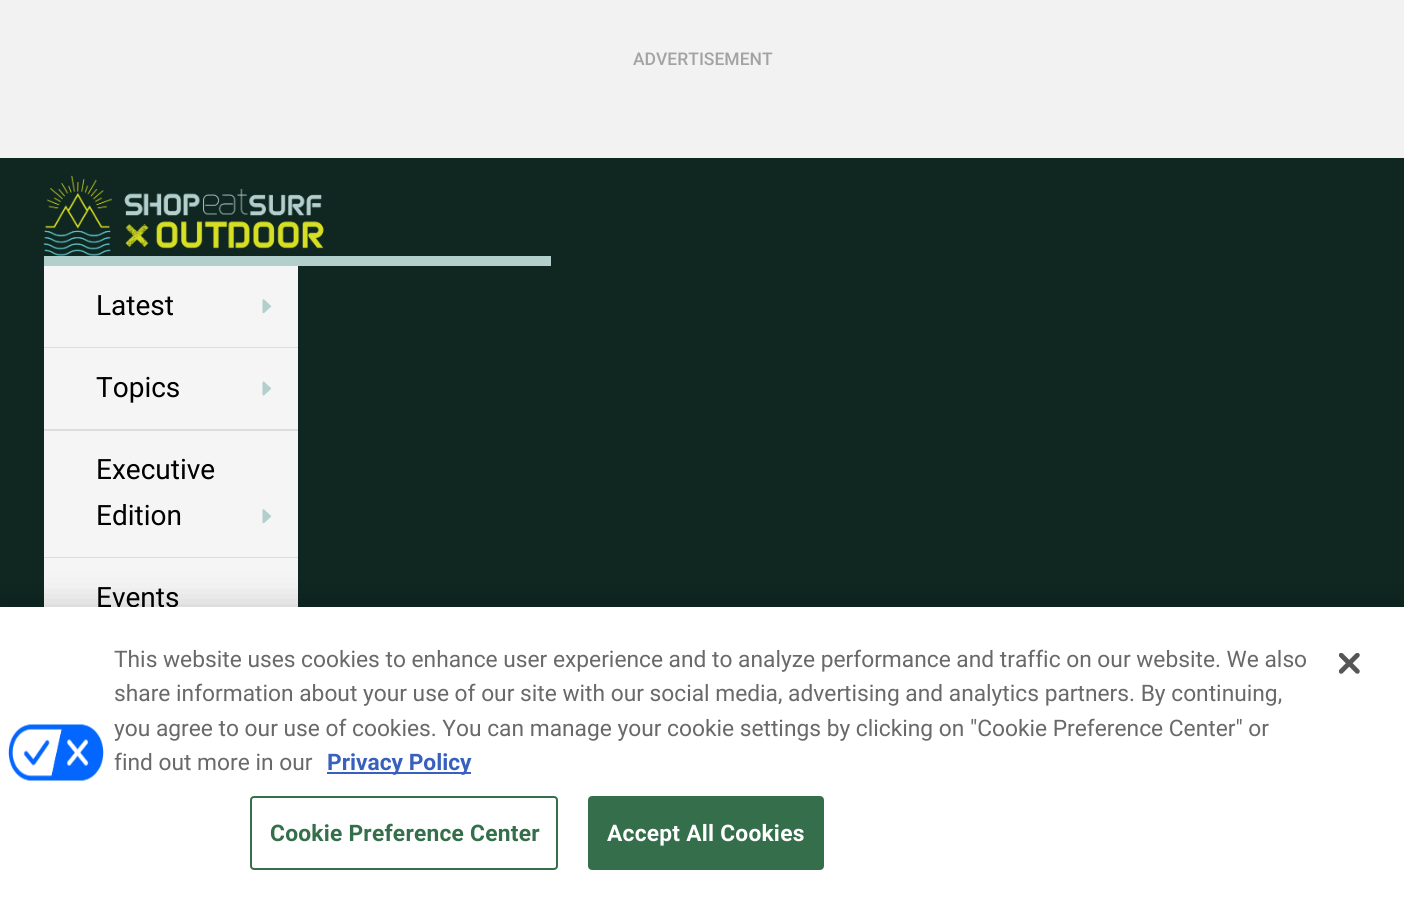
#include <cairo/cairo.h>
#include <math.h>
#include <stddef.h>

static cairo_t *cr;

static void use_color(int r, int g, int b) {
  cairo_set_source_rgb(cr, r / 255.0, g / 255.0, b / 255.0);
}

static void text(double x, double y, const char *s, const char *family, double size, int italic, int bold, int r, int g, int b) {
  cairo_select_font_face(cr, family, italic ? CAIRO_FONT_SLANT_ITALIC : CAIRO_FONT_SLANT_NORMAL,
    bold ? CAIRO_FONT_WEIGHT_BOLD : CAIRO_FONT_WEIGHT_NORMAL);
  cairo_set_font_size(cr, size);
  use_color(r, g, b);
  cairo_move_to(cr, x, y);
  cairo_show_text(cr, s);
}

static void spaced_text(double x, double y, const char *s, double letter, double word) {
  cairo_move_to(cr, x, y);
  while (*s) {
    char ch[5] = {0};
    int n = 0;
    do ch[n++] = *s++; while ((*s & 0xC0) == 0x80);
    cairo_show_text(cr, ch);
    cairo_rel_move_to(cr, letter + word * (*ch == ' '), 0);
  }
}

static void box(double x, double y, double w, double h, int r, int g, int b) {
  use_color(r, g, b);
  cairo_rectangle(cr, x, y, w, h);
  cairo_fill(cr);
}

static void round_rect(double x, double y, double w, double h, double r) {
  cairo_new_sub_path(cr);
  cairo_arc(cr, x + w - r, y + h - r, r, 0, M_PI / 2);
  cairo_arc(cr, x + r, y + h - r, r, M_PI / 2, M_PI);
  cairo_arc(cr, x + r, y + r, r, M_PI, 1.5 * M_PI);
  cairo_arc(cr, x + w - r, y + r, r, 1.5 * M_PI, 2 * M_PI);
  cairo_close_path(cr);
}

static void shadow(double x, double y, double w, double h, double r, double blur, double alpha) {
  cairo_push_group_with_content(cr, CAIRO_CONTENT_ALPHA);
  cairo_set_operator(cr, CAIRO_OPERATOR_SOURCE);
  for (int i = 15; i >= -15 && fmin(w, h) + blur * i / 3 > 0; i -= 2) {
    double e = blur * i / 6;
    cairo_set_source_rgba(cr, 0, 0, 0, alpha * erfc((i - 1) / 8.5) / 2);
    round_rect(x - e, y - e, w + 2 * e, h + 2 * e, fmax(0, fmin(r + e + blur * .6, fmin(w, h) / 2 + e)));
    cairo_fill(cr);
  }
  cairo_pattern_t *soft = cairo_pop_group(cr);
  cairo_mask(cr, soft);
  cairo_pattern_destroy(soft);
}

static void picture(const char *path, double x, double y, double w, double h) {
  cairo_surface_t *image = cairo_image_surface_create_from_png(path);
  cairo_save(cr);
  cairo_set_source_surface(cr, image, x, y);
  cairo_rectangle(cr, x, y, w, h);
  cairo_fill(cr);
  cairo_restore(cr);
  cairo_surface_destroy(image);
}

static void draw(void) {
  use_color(242, 242, 242);
  cairo_paint(cr);
  box(0, 158, 1404, 449, 15, 38, 33);
  picture("img_01.png", 43, 175, 281, 81);
  box(44, 256, 507, 10, 178, 207, 204);
  box(44, 266, 254, 81, 245, 245, 245);
  box(44, 347, 254, 1, 221, 221, 221);
  picture("img_02.png", 262, 299, 10, 15);
  box(44, 348, 254, 81, 245, 245, 245);
  box(44, 429, 254, 2, 221, 221, 221);
  picture("img_03.png", 262, 381, 10, 15);
  box(44, 431, 254, 126, 245, 245, 245);
  box(44, 557, 254, 1, 221, 221, 221);
  picture("img_02.png", 262, 509, 10, 15);
  box(44, 558, 254, 49, 245, 245, 245);
  use_color(0, 0, 0);
  shadow(0, 607, 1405, 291, 0, 16, 0.2);
  text(633, 65, "ADVERTISEMENT", "Roboto Medium", 17.5, 0, 0, 163, 163, 163);
  text(96, 315, "Latest", "Roboto", 28, 0, 0, 0, 0, 0);
  text(96, 397, "Topics", "Roboto", 28, 0, 0, 0, 0, 0);
  text(96, 479, "Executive", "Roboto", 28, 0, 0, 0, 0, 0);
  text(96, 525, "Edition", "Roboto", 28, 0, 0, 0, 0, 0);
  text(96, 607, "Events", "Roboto", 28, 0, 0, 0, 0, 0);
  box(0, 607, 1404, 290, 255, 255, 255);
  picture("img_04.png", 8, 724, 96, 57);
  text(114, 667, "This website uses cookies to enhance user experience and to analyze performance and traffic on our website. We also", "Roboto", 22.75, 0, 0, 105, 105, 105);
  text(114, 701, "share information about your use of our site with our social media, advertising and analytics partners. By continuing,", "Roboto", 22.75, 0, 0, 105, 105, 105);
  text(114, 736, "you agree to our use of cookies. You can manage your cookie settings by clicking on \"Cookie Preference Center\" or", "Roboto", 22.75, 0, 0, 105, 105, 105);
  text(114, 770, "find out more in our", "Roboto", 22.75, 0, 0, 105, 105, 105);
  box(327, 772, 144, 2, 56, 96, 190);
  text(327, 770, "Privacy Policy", "Roboto", 22.75, 0, 1, 56, 96, 190);
  round_rect(251, 797, 306, 72, 3);
  use_color(52, 110, 74);
  cairo_stroke(cr);
  spaced_text(270, 841, "Cookie Preference Center", 0.25, 0);
  round_rect(589, 797, 234, 72, 3);
  cairo_fill_preserve(cr);
  cairo_stroke(cr);
  use_color(255, 255, 255);
  spaced_text(607, 841, "Accept All Cookies", 0.25, 0);
  picture("img_05.png", 1339, 653, 21, 21);
}

int main(void) {
  cairo_surface_t *surface = cairo_image_surface_create(CAIRO_FORMAT_RGB24, 1404, 897);
  cr = cairo_create(surface);
  cairo_font_options_t *options = cairo_font_options_create();
  cairo_font_options_set_hint_metrics(options, CAIRO_HINT_METRICS_OFF);
  cairo_font_options_set_hint_style(options, CAIRO_HINT_STYLE_NONE);
  cairo_set_font_options(cr, options);
  cairo_set_miter_limit(cr, 4);
  draw();
  cairo_surface_write_to_png(surface, "out.png");
  cairo_font_options_destroy(options);
  cairo_destroy(cr);
  cairo_surface_destroy(surface);
  return 0;
}
